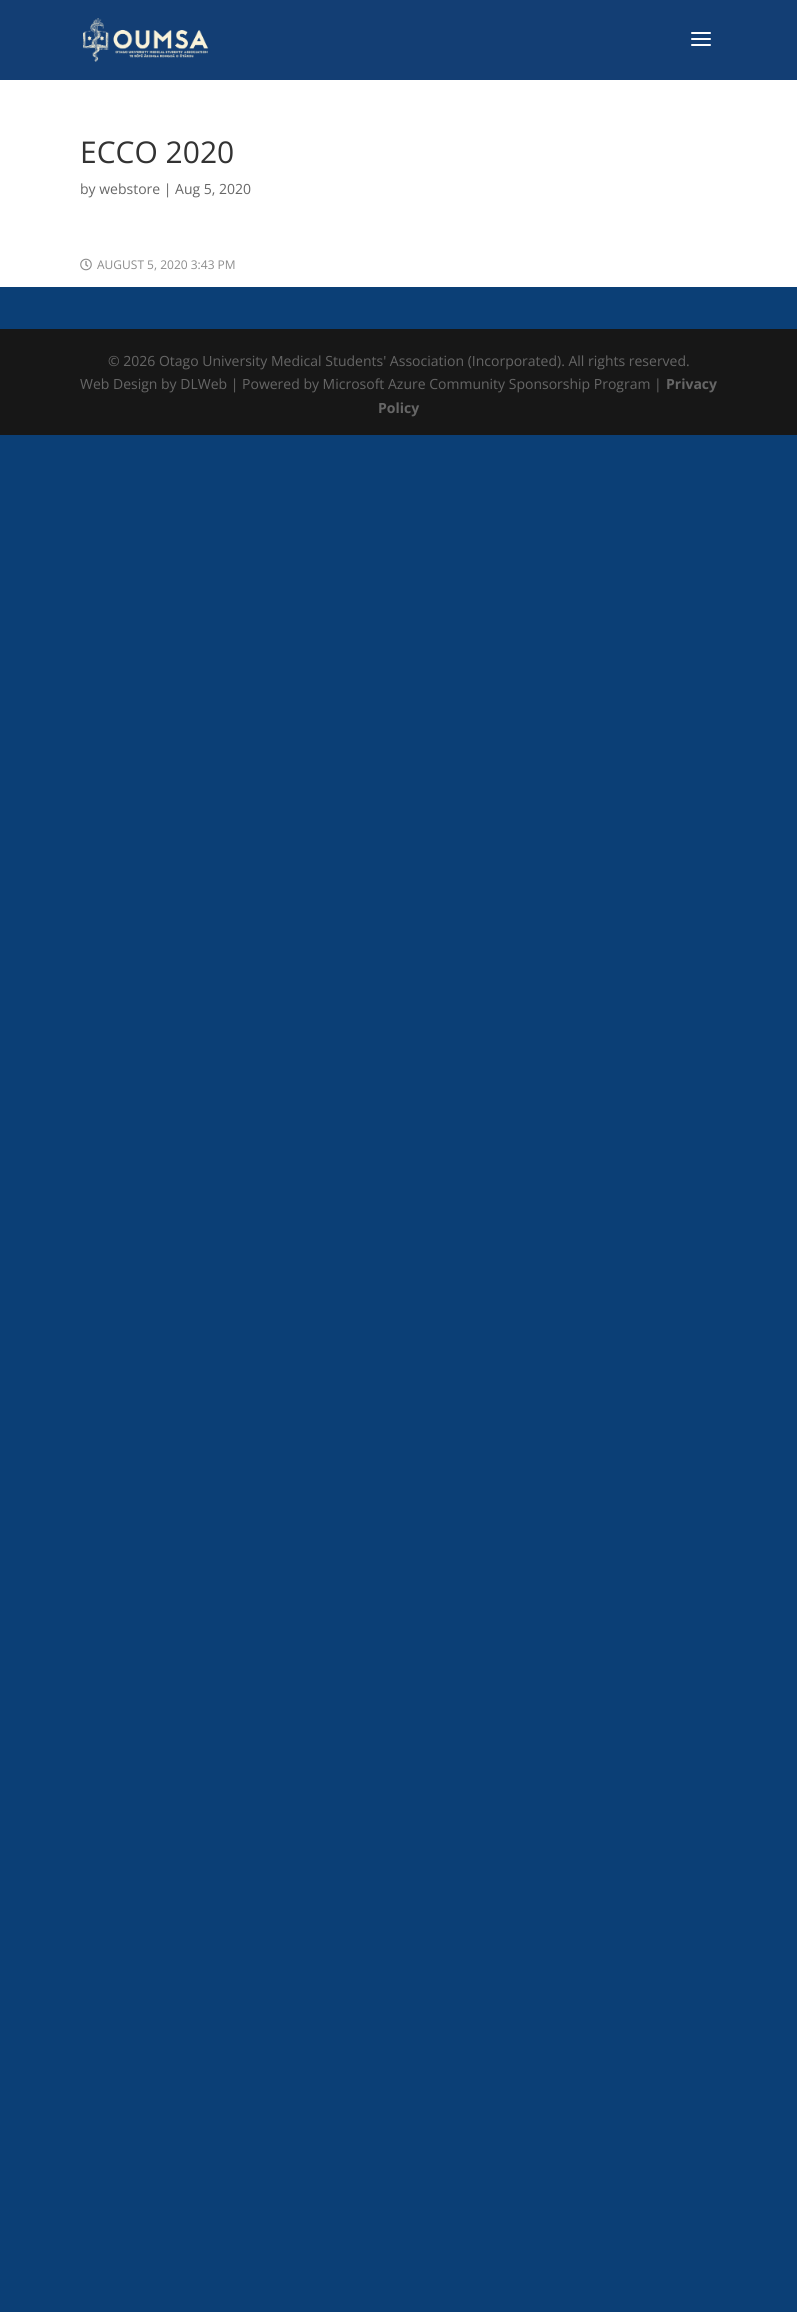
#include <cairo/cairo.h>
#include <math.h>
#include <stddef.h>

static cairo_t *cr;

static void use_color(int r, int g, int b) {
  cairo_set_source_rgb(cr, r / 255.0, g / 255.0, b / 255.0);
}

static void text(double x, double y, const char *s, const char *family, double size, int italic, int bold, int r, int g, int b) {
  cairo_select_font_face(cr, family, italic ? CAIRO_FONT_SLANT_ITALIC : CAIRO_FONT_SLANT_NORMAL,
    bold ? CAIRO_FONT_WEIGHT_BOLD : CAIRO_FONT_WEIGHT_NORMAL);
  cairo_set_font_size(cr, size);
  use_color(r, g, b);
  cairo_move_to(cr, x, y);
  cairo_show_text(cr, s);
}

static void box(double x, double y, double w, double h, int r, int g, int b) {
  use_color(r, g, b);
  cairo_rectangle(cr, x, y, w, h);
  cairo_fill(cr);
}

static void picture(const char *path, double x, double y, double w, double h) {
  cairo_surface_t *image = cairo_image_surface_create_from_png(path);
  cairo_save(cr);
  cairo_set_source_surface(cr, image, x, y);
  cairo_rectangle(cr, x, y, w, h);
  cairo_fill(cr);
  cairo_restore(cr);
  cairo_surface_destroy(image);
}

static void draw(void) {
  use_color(11, 63, 118);
  cairo_paint(cr);
  box(0, 0, 797, 80, 19, 62, 116);
  picture("img_01.png", 83, 18, 126, 44);
  picture("img_02.png", 691, 32, 20, 14);
  box(0, 80, 797, 207, 255, 255, 255);
  picture("img_03.png", 80, 258, 12, 13);
  box(0, 329, 797, 106, 23, 23, 23);
  text(80, 163, "ECCO 2020", "Open Sans", 30, 0, 0, 51, 51, 51);
  text(80, 194, "by webstore | Aug 5, 2020", "Open Sans", 14, 0, 0, 102, 102, 102);
  text(97, 269, "AUGUST 5, 2020 3:43 PM", "Open Sans", 12, 0, 0, 140, 140, 140);
  text(108, 366, "© 2026 Otago University Medical Students' Association (Incorporated). All rights reserved.", "Open Sans", 14, 0, 0, 102, 102, 102);
  text(80, 389, "Web Design by DLWeb | Powered by Microsoft Azure Community Sponsorship Program |", "Open Sans", 14, 0, 0, 102, 102, 102);
  text(666, 389, "Privacy", "Open Sans", 14, 0, 1, 102, 102, 102);
  text(378, 413, "Policy", "Open Sans", 14, 0, 1, 102, 102, 102);
}

int main(void) {
  cairo_surface_t *surface = cairo_image_surface_create(CAIRO_FORMAT_RGB24, 797, 2312);
  cr = cairo_create(surface);
  cairo_font_options_t *options = cairo_font_options_create();
  cairo_font_options_set_hint_metrics(options, CAIRO_HINT_METRICS_OFF);
  cairo_font_options_set_hint_style(options, CAIRO_HINT_STYLE_NONE);
  cairo_set_font_options(cr, options);
  cairo_set_miter_limit(cr, 4);
  draw();
  cairo_surface_write_to_png(surface, "out.png");
  cairo_font_options_destroy(options);
  cairo_destroy(cr);
  cairo_surface_destroy(surface);
  return 0;
}
